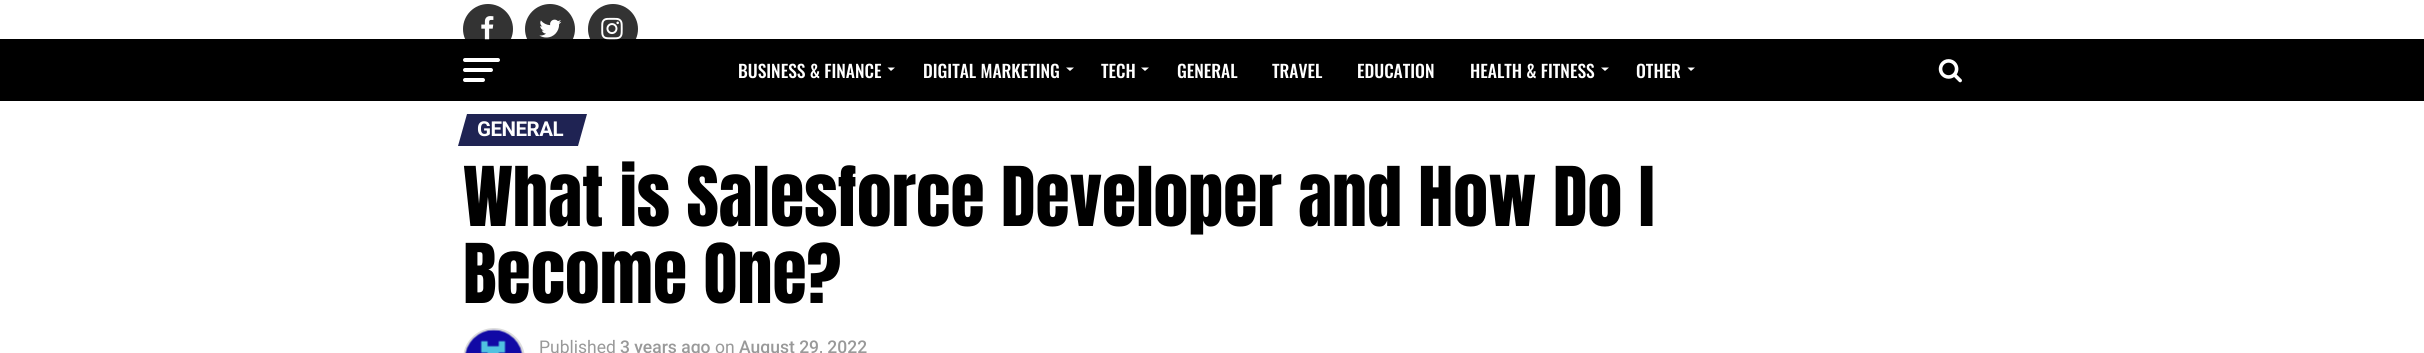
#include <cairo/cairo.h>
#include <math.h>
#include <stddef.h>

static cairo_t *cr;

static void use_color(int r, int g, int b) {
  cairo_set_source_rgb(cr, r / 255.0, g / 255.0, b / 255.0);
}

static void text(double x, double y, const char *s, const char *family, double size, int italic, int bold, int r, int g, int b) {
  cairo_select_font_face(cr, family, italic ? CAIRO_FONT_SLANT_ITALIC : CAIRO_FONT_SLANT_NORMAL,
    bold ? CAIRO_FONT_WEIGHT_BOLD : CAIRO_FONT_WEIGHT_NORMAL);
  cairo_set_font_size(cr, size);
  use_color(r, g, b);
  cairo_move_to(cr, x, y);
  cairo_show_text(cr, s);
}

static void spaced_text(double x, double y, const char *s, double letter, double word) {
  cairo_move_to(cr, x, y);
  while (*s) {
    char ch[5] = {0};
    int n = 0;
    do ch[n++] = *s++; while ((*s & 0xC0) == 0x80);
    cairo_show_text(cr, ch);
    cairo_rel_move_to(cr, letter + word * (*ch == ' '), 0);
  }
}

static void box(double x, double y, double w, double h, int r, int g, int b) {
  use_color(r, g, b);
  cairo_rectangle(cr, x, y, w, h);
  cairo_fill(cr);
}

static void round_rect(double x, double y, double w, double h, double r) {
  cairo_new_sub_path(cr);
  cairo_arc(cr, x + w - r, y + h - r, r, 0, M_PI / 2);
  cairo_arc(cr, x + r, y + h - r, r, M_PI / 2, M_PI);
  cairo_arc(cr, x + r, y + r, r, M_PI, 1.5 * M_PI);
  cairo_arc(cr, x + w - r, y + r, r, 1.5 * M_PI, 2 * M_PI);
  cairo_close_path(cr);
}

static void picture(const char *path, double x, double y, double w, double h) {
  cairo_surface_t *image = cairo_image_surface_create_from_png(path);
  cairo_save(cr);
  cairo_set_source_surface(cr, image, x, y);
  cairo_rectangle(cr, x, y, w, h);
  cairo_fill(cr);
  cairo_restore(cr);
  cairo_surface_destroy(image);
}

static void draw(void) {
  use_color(255, 255, 255);
  cairo_paint(cr);
  box(0, 39, 2424, 62, 0, 0, 0);
  cairo_set_source_rgba(cr, 0, 0, 0, 0.8);
  cairo_arc(cr, 488, 29, 25, 0, 2 * M_PI);
  cairo_fill(cr);
  picture("img_01.png", 481, 16, 13, 24);
  cairo_arc(cr, 550, 29, 25, 0, 2 * M_PI);
  cairo_fill(cr);
  picture("img_02.png", 539, 19, 23, 19);
  cairo_arc(cr, 613, 29, 25, 0, 2 * M_PI);
  cairo_fill(cr);
  picture("img_03.png", 601, 17, 22, 23);
  use_color(255, 255, 255);
  round_rect(463, 58, 37, 4, 2);
  cairo_fill(cr);
  round_rect(463, 68, 30, 4, 2);
  cairo_fill(cr);
  round_rect(463, 78, 22, 4, 2);
  cairo_fill(cr);
  cairo_new_path(cr);
  cairo_move_to(cr, 887.5, 67.5);
  cairo_line_to(cr, 895, 67.5);
  cairo_line_to(cr, 891, 71);
  cairo_close_path(cr);
  cairo_fill(cr);
  cairo_new_path(cr);
  cairo_move_to(cr, 1066, 67.5);
  cairo_line_to(cr, 1074, 67.5);
  cairo_line_to(cr, 1070, 71);
  cairo_close_path(cr);
  cairo_fill(cr);
  cairo_new_path(cr);
  cairo_move_to(cr, 1141, 67.5);
  cairo_line_to(cr, 1149, 67.5);
  cairo_line_to(cr, 1145, 71);
  cairo_close_path(cr);
  cairo_fill(cr);
  cairo_new_path(cr);
  cairo_move_to(cr, 1601, 67.5);
  cairo_line_to(cr, 1609, 67.5);
  cairo_line_to(cr, 1605, 71);
  cairo_close_path(cr);
  cairo_fill(cr);
  cairo_new_path(cr);
  cairo_move_to(cr, 1687.5, 67.5);
  cairo_line_to(cr, 1695, 67.5);
  cairo_line_to(cr, 1691, 71);
  cairo_close_path(cr);
  cairo_fill(cr);
  picture("img_04.png", 1938, 59, 24, 24);
  use_color(31, 35, 83);
  cairo_new_path(cr);
  cairo_move_to(cr, 467, 114);
  cairo_line_to(cr, 587, 114);
  cairo_line_to(cr, 578, 146);
  cairo_line_to(cr, 458, 146);
  cairo_close_path(cr);
  cairo_fill(cr);
  round_rect(464.5, 329.5, 59, 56, 29.5);
  use_color(221, 221, 221);
  cairo_set_line_width(cr, 3);
  cairo_stroke(cr);
  picture("img_05.png", 465, 329, 58, 24);
  text(738, 78, "BUSINESS & FINANCE", "Oswald Medium", 17.5, 0, 0, 255, 255, 255);
  text(923, 78, "DIGITAL MARKETING", "Oswald Medium", 17.5, 0, 0, 255, 255, 255);
  text(1101, 78, "TECH", "Oswald Medium", 17.5, 0, 0, 255, 255, 255);
  text(1177, 78, "GENERAL", "Oswald Medium", 17.5, 0, 0, 255, 255, 255);
  text(1272, 78, "TRAVEL", "Oswald Medium", 17.5, 0, 0, 255, 255, 255);
  text(1357, 78, "EDUCATION", "Oswald Medium", 17.5, 0, 0, 255, 255, 255);
  text(1470, 78, "HEALTH & FITNESS", "Oswald Medium", 17.5, 0, 0, 255, 255, 255);
  text(1636, 78, "OTHER", "Oswald Medium", 17.5, 0, 0, 255, 255, 255);
  cairo_select_font_face(cr, "Roboto", CAIRO_FONT_SLANT_NORMAL, CAIRO_FONT_WEIGHT_BOLD);
  cairo_set_font_size(cr, 20.5);
  spaced_text(477, 136, "GENERAL", -0.5, 0);
  text(463, 226, "What is Salesforce Developer and How Do I", "Anton", 70, 0, 0, 0, 0, 0);
  text(463, 303, "Become One?", "Anton", 70, 0, 0, 0, 0, 0);
  text(539, 353, "Published", "Roboto", 17.5, 0, 0, 153, 153, 153);
  text(620, 353, "3 years ago", "Roboto Medium", 17.5, 0, 0, 153, 153, 153);
  text(715, 353, "on", "Roboto", 17.5, 0, 0, 153, 153, 153);
  text(739, 353, "August 29, 2022", "Roboto Medium", 17.5, 0, 0, 153, 153, 153);
}

int main(void) {
  cairo_surface_t *surface = cairo_image_surface_create(CAIRO_FORMAT_RGB24, 2424, 353);
  cr = cairo_create(surface);
  cairo_font_options_t *options = cairo_font_options_create();
  cairo_font_options_set_hint_metrics(options, CAIRO_HINT_METRICS_OFF);
  cairo_font_options_set_hint_style(options, CAIRO_HINT_STYLE_NONE);
  cairo_set_font_options(cr, options);
  cairo_set_miter_limit(cr, 4);
  draw();
  cairo_surface_write_to_png(surface, "out.png");
  cairo_font_options_destroy(options);
  cairo_destroy(cr);
  cairo_surface_destroy(surface);
  return 0;
}
